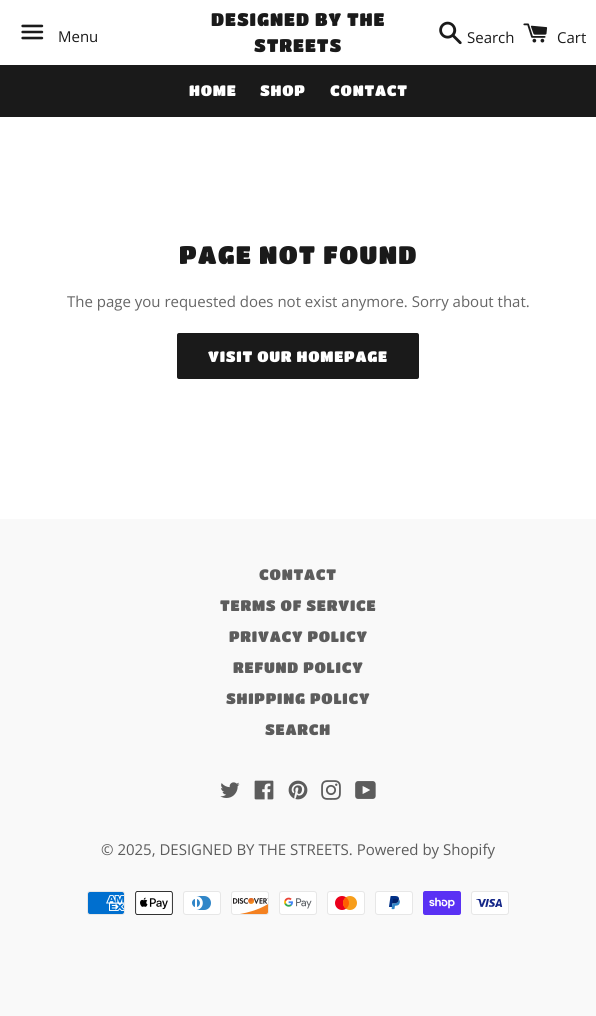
#include <cairo/cairo.h>
#include <math.h>
#include <stddef.h>

static cairo_t *cr;

static void use_color(int r, int g, int b) {
  cairo_set_source_rgb(cr, r / 255.0, g / 255.0, b / 255.0);
}

static void text(double x, double y, const char *s, const char *family, double size, int italic, int bold, int r, int g, int b) {
  cairo_select_font_face(cr, family, italic ? CAIRO_FONT_SLANT_ITALIC : CAIRO_FONT_SLANT_NORMAL,
    bold ? CAIRO_FONT_WEIGHT_BOLD : CAIRO_FONT_WEIGHT_NORMAL);
  cairo_set_font_size(cr, size);
  use_color(r, g, b);
  cairo_move_to(cr, x, y);
  cairo_show_text(cr, s);
}

static void spaced_text(double x, double y, const char *s, double letter, double word) {
  cairo_move_to(cr, x, y);
  while (*s) {
    char ch[5] = {0};
    int n = 0;
    do ch[n++] = *s++; while ((*s & 0xC0) == 0x80);
    cairo_show_text(cr, ch);
    cairo_rel_move_to(cr, letter + word * (*ch == ' '), 0);
  }
}

static void box(double x, double y, double w, double h, int r, int g, int b) {
  use_color(r, g, b);
  cairo_rectangle(cr, x, y, w, h);
  cairo_fill(cr);
}

static void round_rect(double x, double y, double w, double h, double r) {
  cairo_new_sub_path(cr);
  cairo_arc(cr, x + w - r, y + h - r, r, 0, M_PI / 2);
  cairo_arc(cr, x + r, y + h - r, r, M_PI / 2, M_PI);
  cairo_arc(cr, x + r, y + r, r, M_PI, 1.5 * M_PI);
  cairo_arc(cr, x + w - r, y + r, r, 1.5 * M_PI, 2 * M_PI);
  cairo_close_path(cr);
}

static void picture(const char *path, double x, double y, double w, double h) {
  cairo_surface_t *image = cairo_image_surface_create_from_png(path);
  cairo_save(cr);
  cairo_set_source_surface(cr, image, x, y);
  cairo_rectangle(cr, x, y, w, h);
  cairo_fill(cr);
  cairo_restore(cr);
  cairo_surface_destroy(image);
}

static void draw(void) {
  use_color(249, 249, 249);
  cairo_paint(cr);
  box(0, 0, 596, 519, 255, 255, 255);
  picture("img_01.png", 21, 24, 23, 16);
  picture("img_02.png", 439, 21, 23, 24);
  picture("img_03.png", 523, 23, 25, 20);
  box(0, 65, 596, 52, 26, 26, 26);
  round_rect(177, 333, 242, 46, 2);
  cairo_fill(cr);
  picture("img_04.png", 220, 782, 20, 16);
  picture("img_05.png", 254, 780, 20, 20);
  picture("img_06.png", 288, 780, 20, 20);
  picture("img_07.png", 321, 780, 20, 20);
  picture("img_08.png", 355, 781, 21, 18);
  picture("img_09.png", 87, 891, 38, 24);
  picture("img_10.png", 135, 891, 38, 24);
  picture("img_11.png", 183, 891, 38, 24);
  picture("img_12.png", 231, 891, 38, 24);
  picture("img_13.png", 279, 891, 38, 24);
  picture("img_14.png", 327, 891, 38, 24);
  picture("img_15.png", 375, 891, 38, 24);
  picture("img_16.png", 423, 891, 38, 24);
  picture("img_17.png", 471, 891, 38, 24);
  text(58, 42, "Menu", "Open Sans", 15, 0, 0, 26, 26, 26);
  cairo_select_font_face(cr, "Titan One", CAIRO_FONT_SLANT_NORMAL, CAIRO_FONT_WEIGHT_NORMAL);
  cairo_set_font_size(cr, 18);
  spaced_text(211, 26, "DESIGNED BY THE", 0.9, 0);
  spaced_text(254, 52, "STREETS", 0.9, 0);
  text(467, 43, "Search", "Open Sans", 15, 0, 0, 26, 26, 26);
  text(557, 43, "Cart", "Open Sans", 15, 0, 0, 26, 26, 26);
  cairo_select_font_face(cr, "Titan One", CAIRO_FONT_SLANT_NORMAL, CAIRO_FONT_WEIGHT_NORMAL);
  use_color(255, 255, 255);
  spaced_text(189, 96, "HOME", 0.75, 0);
  spaced_text(260, 96, "SHOP", 0.75, 0);
  spaced_text(330, 96, "CONTACT", 0.75, 0);
  cairo_set_font_size(cr, 25);
  use_color(26, 26, 26);
  spaced_text(179, 264, "PAGE NOT FOUND", 1.25, 0);
  text(67, 307, "The page you requested does not exist anymore. Sorry about that.", "Open Sans", 15, 0, 0, 102, 102, 102);
  cairo_select_font_face(cr, "Titan One", CAIRO_FONT_SLANT_NORMAL, CAIRO_FONT_WEIGHT_NORMAL);
  use_color(255, 255, 255);
  spaced_text(208, 362, "VISIT OUR HOMEPAGE", 0.75, 0);
  use_color(92, 92, 92);
  spaced_text(259, 580, "CONTACT", 0.75, 0);
  spaced_text(220, 611, "TERMS OF SERVICE", 0.75, 0);
  spaced_text(229, 642, "PRIVACY POLICY", 0.75, 0);
  spaced_text(233, 673, "REFUND POLICY", 0.75, 0);
  spaced_text(226, 704, "SHIPPING POLICY", 0.75, 0);
  spaced_text(265, 735, "SEARCH", 0.75, 0);
  text(101, 855, "© 2025, DESIGNED BY THE STREETS. Powered by Shopify", "Open Sans", 15, 0, 0, 92, 92, 92);
}

int main(void) {
  cairo_surface_t *surface = cairo_image_surface_create(CAIRO_FORMAT_RGB24, 596, 1016);
  cr = cairo_create(surface);
  cairo_font_options_t *options = cairo_font_options_create();
  cairo_font_options_set_hint_metrics(options, CAIRO_HINT_METRICS_OFF);
  cairo_font_options_set_hint_style(options, CAIRO_HINT_STYLE_NONE);
  cairo_set_font_options(cr, options);
  cairo_set_miter_limit(cr, 4);
  draw();
  cairo_surface_write_to_png(surface, "out.png");
  cairo_font_options_destroy(options);
  cairo_destroy(cr);
  cairo_surface_destroy(surface);
  return 0;
}
